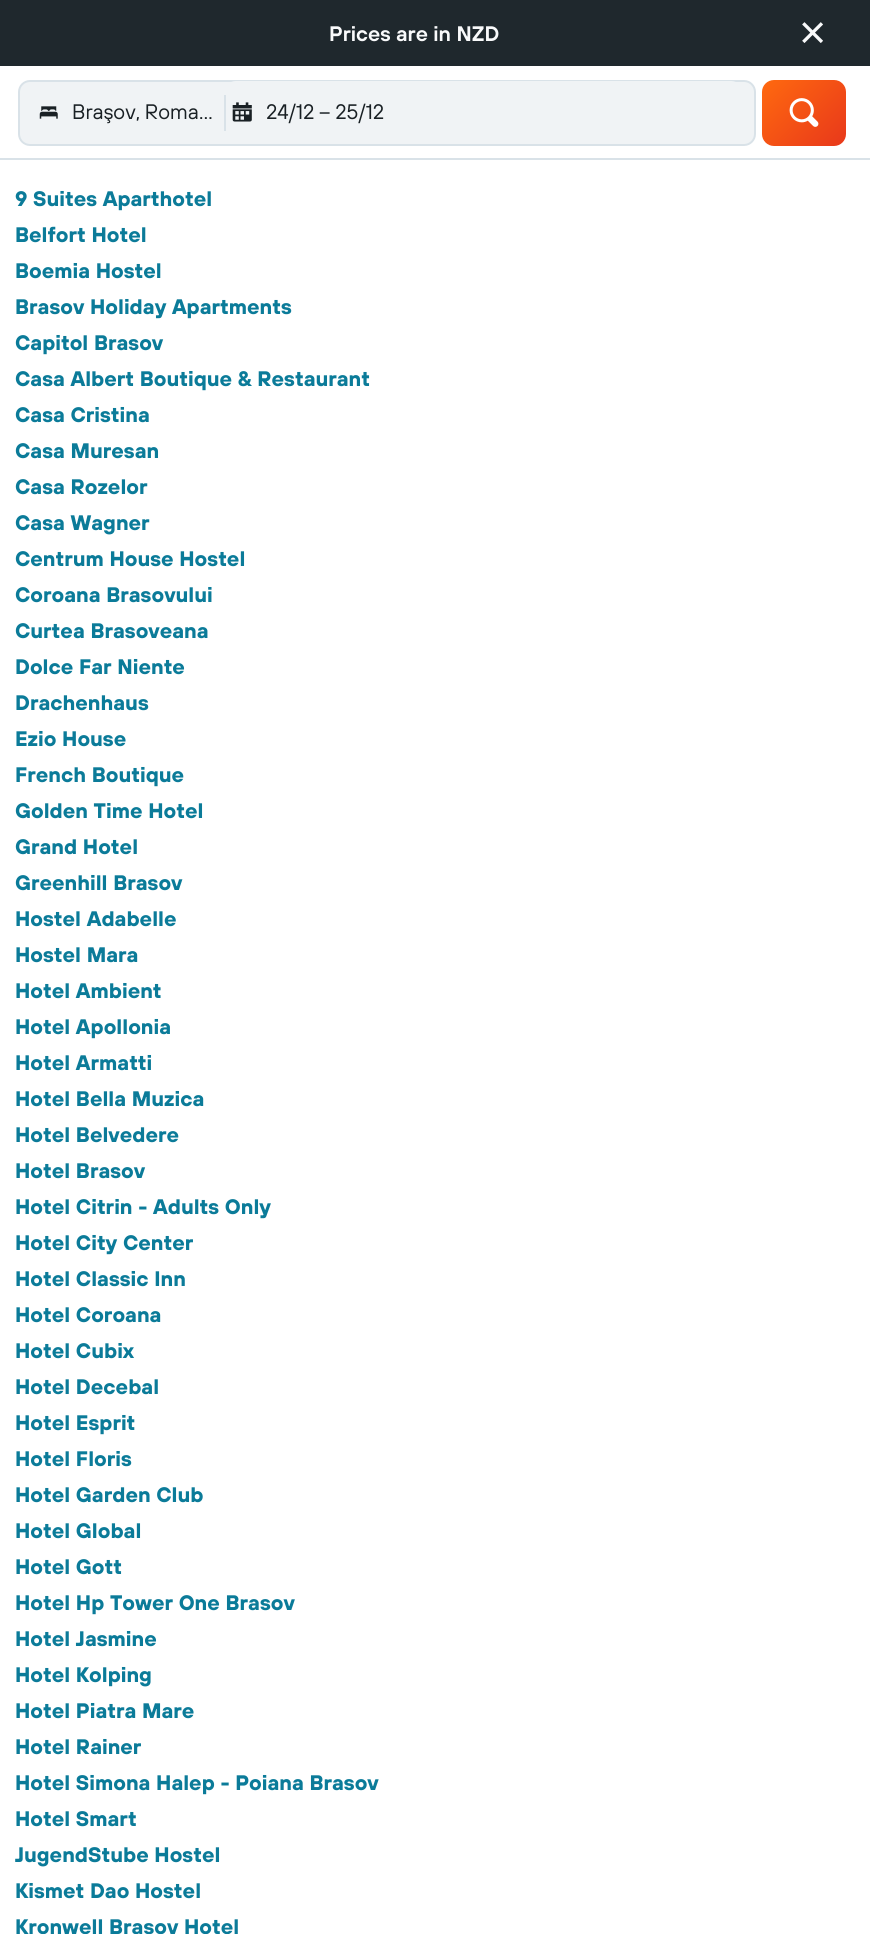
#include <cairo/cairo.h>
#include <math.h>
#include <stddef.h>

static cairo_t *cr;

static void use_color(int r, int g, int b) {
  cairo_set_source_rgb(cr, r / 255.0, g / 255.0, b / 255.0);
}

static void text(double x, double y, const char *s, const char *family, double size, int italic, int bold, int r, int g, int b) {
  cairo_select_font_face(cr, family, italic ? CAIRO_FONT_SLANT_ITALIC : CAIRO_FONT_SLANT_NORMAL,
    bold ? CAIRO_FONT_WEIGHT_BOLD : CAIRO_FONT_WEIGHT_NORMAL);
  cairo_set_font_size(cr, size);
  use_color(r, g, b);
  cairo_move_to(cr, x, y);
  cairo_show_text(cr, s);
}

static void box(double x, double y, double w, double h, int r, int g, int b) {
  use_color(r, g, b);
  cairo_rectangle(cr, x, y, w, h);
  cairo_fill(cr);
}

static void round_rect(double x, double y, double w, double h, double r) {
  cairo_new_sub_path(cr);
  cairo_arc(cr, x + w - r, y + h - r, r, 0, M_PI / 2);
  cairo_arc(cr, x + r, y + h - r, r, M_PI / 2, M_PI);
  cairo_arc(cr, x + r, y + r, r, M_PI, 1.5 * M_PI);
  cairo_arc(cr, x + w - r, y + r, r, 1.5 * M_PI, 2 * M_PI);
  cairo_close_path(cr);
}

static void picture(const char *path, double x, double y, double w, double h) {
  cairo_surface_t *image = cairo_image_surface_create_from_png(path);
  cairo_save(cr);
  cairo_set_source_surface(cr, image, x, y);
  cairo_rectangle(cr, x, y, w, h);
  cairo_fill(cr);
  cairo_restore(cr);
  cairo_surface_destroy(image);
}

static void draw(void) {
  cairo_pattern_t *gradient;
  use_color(255, 255, 255);
  cairo_paint(cr);
  box(0, 0, 870, 66, 31, 40, 45);
  picture("img_01.png", 802, 22, 21, 21);
  box(0, 158, 870, 2, 217, 226, 232);
  use_color(240, 243, 245);
  round_rect(19, 81, 736, 64, 11);
  cairo_fill_preserve(cr);
  use_color(217, 226, 232);
  cairo_stroke(cr);
  picture("img_02.png", 39, 106, 19, 13);
  use_color(240, 243, 245);
  round_rect(224, 81, 519, 63, 12);
  cairo_fill(cr);
  box(224, 95, 2, 36, 217, 226, 232);
  picture("img_03.png", 232, 102, 20, 20);
  gradient = cairo_pattern_create_linear(767, 75, 842, 150);
  cairo_pattern_add_color_stop_rgba(gradient, 0, 1, 0.412, 0.059, 1);
  cairo_pattern_add_color_stop_rgba(gradient, 1, 0.91, 0.22, 0.106, 1);
  cairo_set_source(cr, gradient);
  cairo_pattern_destroy(gradient);
  round_rect(762, 80, 84, 66, 12);
  cairo_fill(cr);
  picture("img_04.png", 789, 98, 30, 29);
  text(329, 41, "Prices are in NZD", "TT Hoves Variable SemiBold", 21, 0, 0, 249, 250, 251);
  text(72, 119, "Braşov, Roma…", "TT Hoves Variable", 21, 0, 0, 25, 32, 36);
  text(266, 119, "24/12 – 25/12", "TT Hoves Variable", 21, 0, 0, 25, 32, 36);
  text(15, 206, "9 Suites Aparthotel", "TT Hoves Variable", 21, 0, 1, 11, 123, 153);
  text(15, 242, "Belfort Hotel", "TT Hoves Variable", 21, 0, 1, 11, 123, 153);
  text(15, 278, "Boemia Hostel", "TT Hoves Variable", 21, 0, 1, 11, 123, 153);
  text(15, 314, "Brasov Holiday Apartments", "TT Hoves Variable", 21, 0, 1, 11, 123, 153);
  text(15, 350, "Capitol Brasov", "TT Hoves Variable", 21, 0, 1, 11, 123, 153);
  text(15, 386, "Casa Albert Boutique & Restaurant", "TT Hoves Variable", 21, 0, 1, 11, 123, 153);
  text(15, 422, "Casa Cristina", "TT Hoves Variable", 21, 0, 1, 11, 123, 153);
  text(15, 458, "Casa Muresan", "TT Hoves Variable", 21, 0, 1, 11, 123, 153);
  text(15, 494, "Casa Rozelor", "TT Hoves Variable", 21, 0, 1, 11, 123, 153);
  text(15, 530, "Casa Wagner", "TT Hoves Variable", 21, 0, 1, 11, 123, 153);
  text(15, 566, "Centrum House Hostel", "TT Hoves Variable", 21, 0, 1, 11, 123, 153);
  text(15, 602, "Coroana Brasovului", "TT Hoves Variable", 21, 0, 1, 11, 123, 153);
  text(15, 638, "Curtea Brasoveana", "TT Hoves Variable", 21, 0, 1, 11, 123, 153);
  text(15, 674, "Dolce Far Niente", "TT Hoves Variable", 21, 0, 1, 11, 123, 153);
  text(15, 710, "Drachenhaus", "TT Hoves Variable", 21, 0, 1, 11, 123, 153);
  text(15, 746, "Ezio House", "TT Hoves Variable", 21, 0, 1, 11, 123, 153);
  text(15, 782, "French Boutique", "TT Hoves Variable", 21, 0, 1, 11, 123, 153);
  text(15, 818, "Golden Time Hotel", "TT Hoves Variable", 21, 0, 1, 11, 123, 153);
  text(15, 854, "Grand Hotel", "TT Hoves Variable", 21, 0, 1, 11, 123, 153);
  text(15, 890, "Greenhill Brasov", "TT Hoves Variable", 21, 0, 1, 11, 123, 153);
  text(15, 926, "Hostel Adabelle", "TT Hoves Variable", 21, 0, 1, 11, 123, 153);
  text(15, 962, "Hostel Mara", "TT Hoves Variable", 21, 0, 1, 11, 123, 153);
  text(15, 998, "Hotel Ambient", "TT Hoves Variable", 21, 0, 1, 11, 123, 153);
  text(15, 1034, "Hotel Apollonia", "TT Hoves Variable", 21, 0, 1, 11, 123, 153);
  text(15, 1070, "Hotel Armatti", "TT Hoves Variable", 21, 0, 1, 11, 123, 153);
  text(15, 1106, "Hotel Bella Muzica", "TT Hoves Variable", 21, 0, 1, 11, 123, 153);
  text(15, 1142, "Hotel Belvedere", "TT Hoves Variable", 21, 0, 1, 11, 123, 153);
  text(15, 1178, "Hotel Brasov", "TT Hoves Variable", 21, 0, 1, 11, 123, 153);
  text(15, 1214, "Hotel Citrin - Adults Only", "TT Hoves Variable", 21, 0, 1, 11, 123, 153);
  text(15, 1250, "Hotel City Center", "TT Hoves Variable", 21, 0, 1, 11, 123, 153);
  text(15, 1286, "Hotel Classic Inn", "TT Hoves Variable", 21, 0, 1, 11, 123, 153);
  text(15, 1322, "Hotel Coroana", "TT Hoves Variable", 21, 0, 1, 11, 123, 153);
  text(15, 1358, "Hotel Cubix", "TT Hoves Variable", 21, 0, 1, 11, 123, 153);
  text(15, 1394, "Hotel Decebal", "TT Hoves Variable", 21, 0, 1, 11, 123, 153);
  text(15, 1430, "Hotel Esprit", "TT Hoves Variable", 21, 0, 1, 11, 123, 153);
  text(15, 1466, "Hotel Floris", "TT Hoves Variable", 21, 0, 1, 11, 123, 153);
  text(15, 1502, "Hotel Garden Club", "TT Hoves Variable", 21, 0, 1, 11, 123, 153);
  text(15, 1538, "Hotel Global", "TT Hoves Variable", 21, 0, 1, 11, 123, 153);
  text(15, 1574, "Hotel Gott", "TT Hoves Variable", 21, 0, 1, 11, 123, 153);
  text(15, 1610, "Hotel Hp Tower One Brasov", "TT Hoves Variable", 21, 0, 1, 11, 123, 153);
  text(15, 1646, "Hotel Jasmine", "TT Hoves Variable", 21, 0, 1, 11, 123, 153);
  text(15, 1682, "Hotel Kolping", "TT Hoves Variable", 21, 0, 1, 11, 123, 153);
  text(15, 1718, "Hotel Piatra Mare", "TT Hoves Variable", 21, 0, 1, 11, 123, 153);
  text(15, 1754, "Hotel Rainer", "TT Hoves Variable", 21, 0, 1, 11, 123, 153);
  text(15, 1790, "Hotel Simona Halep - Poiana Brasov", "TT Hoves Variable", 21, 0, 1, 11, 123, 153);
  text(15, 1826, "Hotel Smart", "TT Hoves Variable", 21, 0, 1, 11, 123, 153);
  text(15, 1862, "JugendStube Hostel", "TT Hoves Variable", 21, 0, 1, 11, 123, 153);
  text(15, 1898, "Kismet Dao Hostel", "TT Hoves Variable", 21, 0, 1, 11, 123, 153);
  text(15, 1934, "Kronwell Brasov Hotel", "TT Hoves Variable", 21, 0, 1, 11, 123, 153);
}

int main(void) {
  cairo_surface_t *surface = cairo_image_surface_create(CAIRO_FORMAT_RGB24, 870, 1934);
  cr = cairo_create(surface);
  cairo_font_options_t *options = cairo_font_options_create();
  cairo_font_options_set_hint_metrics(options, CAIRO_HINT_METRICS_OFF);
  cairo_font_options_set_hint_style(options, CAIRO_HINT_STYLE_NONE);
  cairo_set_font_options(cr, options);
  cairo_set_miter_limit(cr, 4);
  draw();
  cairo_surface_write_to_png(surface, "out.png");
  cairo_font_options_destroy(options);
  cairo_destroy(cr);
  cairo_surface_destroy(surface);
  return 0;
}
